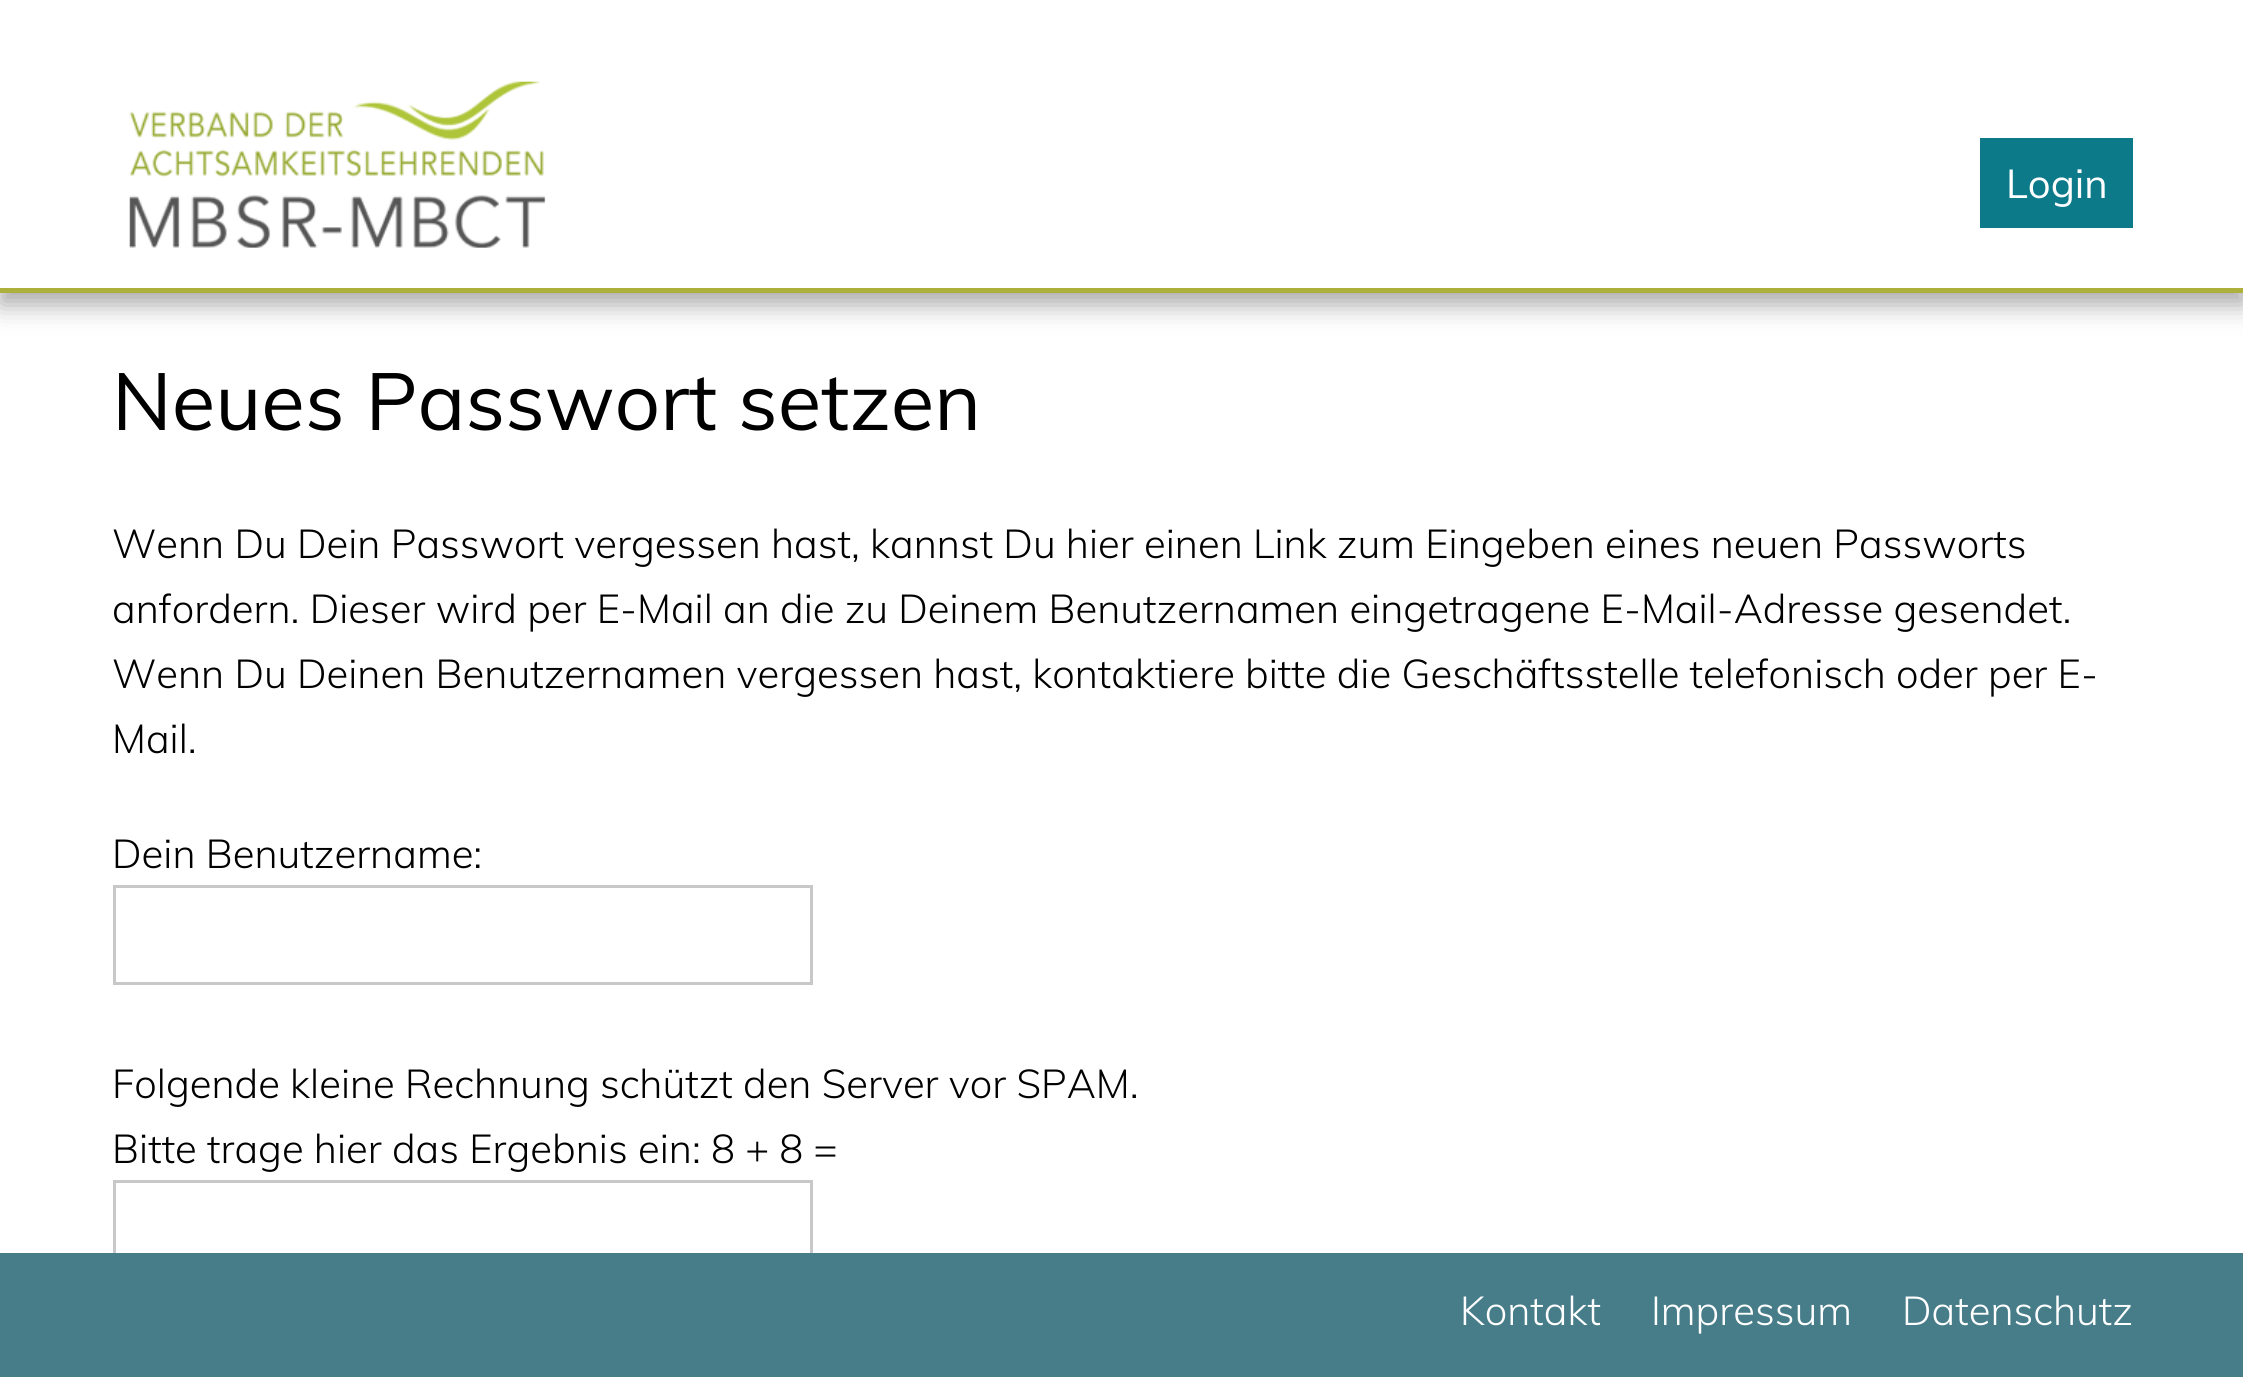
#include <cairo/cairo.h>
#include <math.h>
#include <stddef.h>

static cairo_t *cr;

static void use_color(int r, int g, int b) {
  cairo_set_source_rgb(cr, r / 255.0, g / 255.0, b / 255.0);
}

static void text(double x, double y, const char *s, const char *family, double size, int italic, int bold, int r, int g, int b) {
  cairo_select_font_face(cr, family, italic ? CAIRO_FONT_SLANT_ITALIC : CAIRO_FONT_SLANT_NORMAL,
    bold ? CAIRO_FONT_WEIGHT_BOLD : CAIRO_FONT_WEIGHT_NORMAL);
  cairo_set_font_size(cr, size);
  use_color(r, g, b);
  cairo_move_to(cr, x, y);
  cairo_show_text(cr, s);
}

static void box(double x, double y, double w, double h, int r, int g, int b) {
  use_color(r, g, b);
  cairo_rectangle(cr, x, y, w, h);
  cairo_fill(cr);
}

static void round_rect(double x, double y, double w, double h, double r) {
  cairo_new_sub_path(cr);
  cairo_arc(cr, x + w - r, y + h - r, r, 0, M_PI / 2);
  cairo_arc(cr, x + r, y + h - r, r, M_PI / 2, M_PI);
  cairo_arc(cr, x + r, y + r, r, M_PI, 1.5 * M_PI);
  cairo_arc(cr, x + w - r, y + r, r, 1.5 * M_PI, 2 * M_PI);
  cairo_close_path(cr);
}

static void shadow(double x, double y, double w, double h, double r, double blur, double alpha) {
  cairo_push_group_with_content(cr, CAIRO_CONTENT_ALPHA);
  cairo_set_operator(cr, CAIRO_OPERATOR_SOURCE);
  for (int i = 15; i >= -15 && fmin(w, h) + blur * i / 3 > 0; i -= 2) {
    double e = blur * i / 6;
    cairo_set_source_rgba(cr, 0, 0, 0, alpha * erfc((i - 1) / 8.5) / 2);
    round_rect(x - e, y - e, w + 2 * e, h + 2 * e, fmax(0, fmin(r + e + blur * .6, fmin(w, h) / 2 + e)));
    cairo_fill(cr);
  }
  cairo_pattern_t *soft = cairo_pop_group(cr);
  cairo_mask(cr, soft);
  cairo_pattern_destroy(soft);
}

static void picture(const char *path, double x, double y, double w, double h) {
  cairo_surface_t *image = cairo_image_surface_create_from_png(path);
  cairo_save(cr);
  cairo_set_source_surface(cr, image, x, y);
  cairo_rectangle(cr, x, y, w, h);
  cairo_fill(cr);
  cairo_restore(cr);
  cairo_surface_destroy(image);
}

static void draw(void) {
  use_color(255, 255, 255);
  cairo_paint(cr);
  use_color(170, 170, 170);
  shadow(0, 13, 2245, 292, 0, 12.5, 1);
  box(0, 0, 2243, 288, 255, 255, 255);
  box(0, 288, 2243, 5, 174, 176, 60);
  picture("img_01.png", 129, 81, 417, 167);
  box(1980, 138, 153, 90, 12, 122, 137);
  cairo_rectangle(cr, 114.5, 886.5, 697, 97);
  use_color(200, 200, 200);
  cairo_set_line_width(cr, 3);
  cairo_stroke(cr);
  cairo_rectangle(cr, 114.5, 1181.5, 697, 97);
  cairo_stroke(cr);
  box(0, 1253, 2243, 124, 71, 125, 137);
  text(2006, 198, "Login", "Muli", 40, 0, 0, 255, 255, 255);
  text(112, 430, "Neues Passwort setzen", "Muli", 80, 0, 0, 0, 0, 0);
  text(112, 558, "Wenn Du Dein Passwort vergessen hast, kannst Du hier einen Link zum Eingeben eines neuen Passworts", "Muli Light", 40, 0, 0, 0, 0, 0);
  text(112, 623, "anfordern. Dieser wird per E-Mail an die zu Deinem Benutzernamen eingetragene E-Mail-Adresse gesendet.", "Muli Light", 40, 0, 0, 0, 0, 0);
  text(112, 688, "Wenn Du Deinen Benutzernamen vergessen hast, kontaktiere bitte die Geschäftsstelle telefonisch oder per E-", "Muli Light", 40, 0, 0, 0, 0, 0);
  text(112, 753, "Mail.", "Muli Light", 40, 0, 0, 0, 0, 0);
  text(112, 868, "Dein Benutzername:", "Muli Light", 40, 0, 0, 0, 0, 0);
  text(112, 1098, "Folgende kleine Rechnung schützt den Server vor SPAM.", "Muli Light", 40, 0, 0, 0, 0, 0);
  text(112, 1163, "Bitte trage hier das Ergebnis ein: 8 + 8 =", "Muli Light", 40, 0, 0, 0, 0, 0);
  text(1460, 1325, "Kontakt", "Muli Light", 40, 0, 0, 255, 255, 255);
  text(1651, 1325, "Impressum", "Muli Light", 40, 0, 0, 255, 255, 255);
  text(1902, 1325, "Datenschutz", "Muli Light", 40, 0, 0, 255, 255, 255);
}

int main(void) {
  cairo_surface_t *surface = cairo_image_surface_create(CAIRO_FORMAT_RGB24, 2243, 1377);
  cr = cairo_create(surface);
  cairo_font_options_t *options = cairo_font_options_create();
  cairo_font_options_set_hint_metrics(options, CAIRO_HINT_METRICS_OFF);
  cairo_font_options_set_hint_style(options, CAIRO_HINT_STYLE_NONE);
  cairo_set_font_options(cr, options);
  cairo_set_miter_limit(cr, 4);
  draw();
  cairo_surface_write_to_png(surface, "out.png");
  cairo_font_options_destroy(options);
  cairo_destroy(cr);
  cairo_surface_destroy(surface);
  return 0;
}
